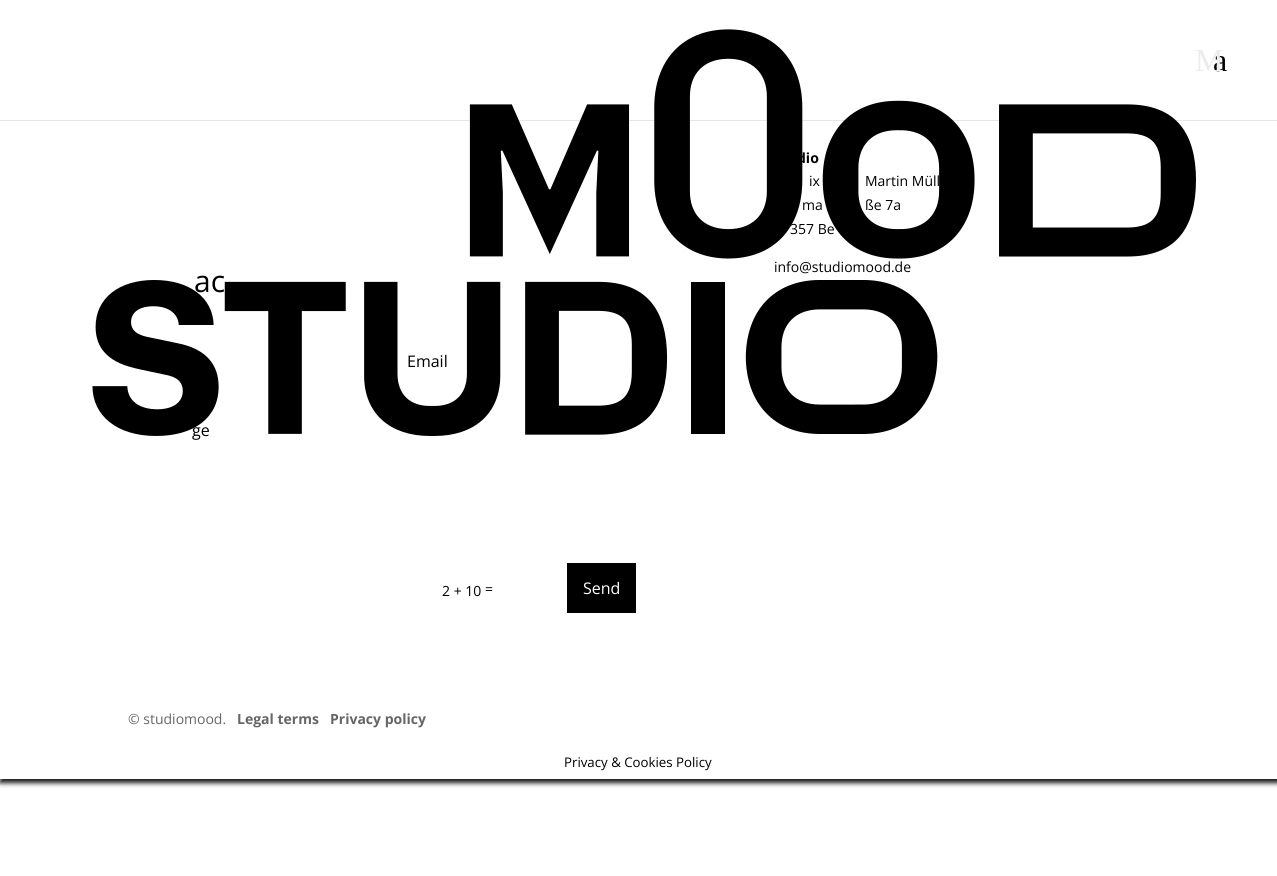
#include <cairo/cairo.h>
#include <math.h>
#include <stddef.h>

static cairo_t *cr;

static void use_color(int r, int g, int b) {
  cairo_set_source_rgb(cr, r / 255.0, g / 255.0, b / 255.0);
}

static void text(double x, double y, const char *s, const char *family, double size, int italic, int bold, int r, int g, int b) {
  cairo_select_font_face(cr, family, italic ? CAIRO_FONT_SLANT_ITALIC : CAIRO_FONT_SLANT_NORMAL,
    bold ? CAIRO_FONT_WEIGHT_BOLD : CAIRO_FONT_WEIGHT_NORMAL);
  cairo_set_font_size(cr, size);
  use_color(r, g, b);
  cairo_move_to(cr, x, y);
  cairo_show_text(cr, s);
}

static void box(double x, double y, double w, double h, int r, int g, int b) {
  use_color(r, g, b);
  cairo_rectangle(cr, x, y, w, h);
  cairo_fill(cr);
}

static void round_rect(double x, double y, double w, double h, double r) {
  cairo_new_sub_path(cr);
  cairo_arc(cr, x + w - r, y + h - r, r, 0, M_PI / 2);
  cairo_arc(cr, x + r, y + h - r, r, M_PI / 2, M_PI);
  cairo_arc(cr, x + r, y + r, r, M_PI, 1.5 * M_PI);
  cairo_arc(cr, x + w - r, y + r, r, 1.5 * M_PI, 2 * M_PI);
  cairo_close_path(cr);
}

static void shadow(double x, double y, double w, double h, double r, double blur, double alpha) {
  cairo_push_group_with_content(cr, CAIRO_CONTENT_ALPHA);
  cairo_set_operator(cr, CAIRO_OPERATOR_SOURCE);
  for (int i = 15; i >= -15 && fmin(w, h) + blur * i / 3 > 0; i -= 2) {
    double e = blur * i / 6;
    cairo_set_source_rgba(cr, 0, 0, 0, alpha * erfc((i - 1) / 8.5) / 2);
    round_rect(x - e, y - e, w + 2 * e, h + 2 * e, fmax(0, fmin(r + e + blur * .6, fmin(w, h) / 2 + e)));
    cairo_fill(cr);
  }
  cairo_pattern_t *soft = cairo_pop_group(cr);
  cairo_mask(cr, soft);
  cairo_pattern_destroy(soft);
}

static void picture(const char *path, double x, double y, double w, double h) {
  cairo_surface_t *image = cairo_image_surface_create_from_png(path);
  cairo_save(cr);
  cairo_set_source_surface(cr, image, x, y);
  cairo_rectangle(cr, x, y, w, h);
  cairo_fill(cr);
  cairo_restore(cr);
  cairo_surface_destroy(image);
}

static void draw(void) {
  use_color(255, 255, 255);
  cairo_paint(cr);
  box(0, 120, 1277, 1, 230, 230, 230);
  box(567, 563, 69, 50, 0, 0, 0);
  cairo_save(cr);
  cairo_rectangle(cr, 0, 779, 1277, 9);
  cairo_clip(cr);
  use_color(22, 22, 22);
  shadow(0, 746, 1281, 37, 0, 2.5, 1);
  cairo_restore(cr);
  box(0, 740, 1277, 6, 255, 255, 255);
  text(1213, 71, "a", "Liberation Serif", 32, 0, 0, 0, 0, 0);
  text(1195, 71, "M", "Liberation Serif", 32, 0, 0, 236, 236, 236);
  text(797, 163, "dio", "Open Sans", 14, 0, 1, 0, 0, 0);
  text(809, 186, "ix", "Open Sans", 14, 0, 0, 0, 0, 0);
  text(865, 186, "Martin Müll", "Open Sans", 14, 0, 0, 0, 0, 0);
  text(802, 210, "ma", "Open Sans", 14, 0, 0, 0, 0, 0);
  text(865, 210, "ße 7a", "Open Sans", 14, 0, 0, 0, 0, 0);
  text(790, 234, "357 Be", "Open Sans", 14, 0, 0, 0, 0, 0);
  text(774, 272, "info@studiomood.de", "Open Sans", 14, 0, 0, 0, 0, 0);
  text(194, 292, "ac", "Open Sans", 30, 0, 0, 0, 0, 0);
  text(407, 367, "Email", "Open Sans", 16, 0, 0, 0, 0, 0);
  text(192, 436, "ge", "Open Sans", 16, 0, 0, 0, 0, 0);
  picture("img_01.png", 92, 29, 1104, 407);
  text(442, 596, "2 + 10", "Open Sans", 14, 0, 0, 0, 0, 0);
  text(485, 594, "=", "Open Sans", 14, 0, 0, 0, 0, 0);
  text(583, 594, "Send", "Open Sans", 16, 0, 0, 255, 255, 255);
  text(128, 724, "© studiomood.", "Open Sans", 14, 0, 0, 102, 102, 102);
  text(237, 724, "Legal terms", "Open Sans", 14, 0, 1, 102, 102, 102);
  text(330, 724, "Privacy policy", "Open Sans", 14, 0, 1, 102, 102, 102);
  text(564, 767, "Privacy & Cookies Policy", "Open Sans", 13.25, 0, 0, 0, 0, 0);
}

int main(void) {
  cairo_surface_t *surface = cairo_image_surface_create(CAIRO_FORMAT_RGB24, 1277, 876);
  cr = cairo_create(surface);
  cairo_font_options_t *options = cairo_font_options_create();
  cairo_font_options_set_hint_metrics(options, CAIRO_HINT_METRICS_OFF);
  cairo_font_options_set_hint_style(options, CAIRO_HINT_STYLE_NONE);
  cairo_set_font_options(cr, options);
  cairo_set_miter_limit(cr, 4);
  draw();
  cairo_surface_write_to_png(surface, "out.png");
  cairo_font_options_destroy(options);
  cairo_destroy(cr);
  cairo_surface_destroy(surface);
  return 0;
}
